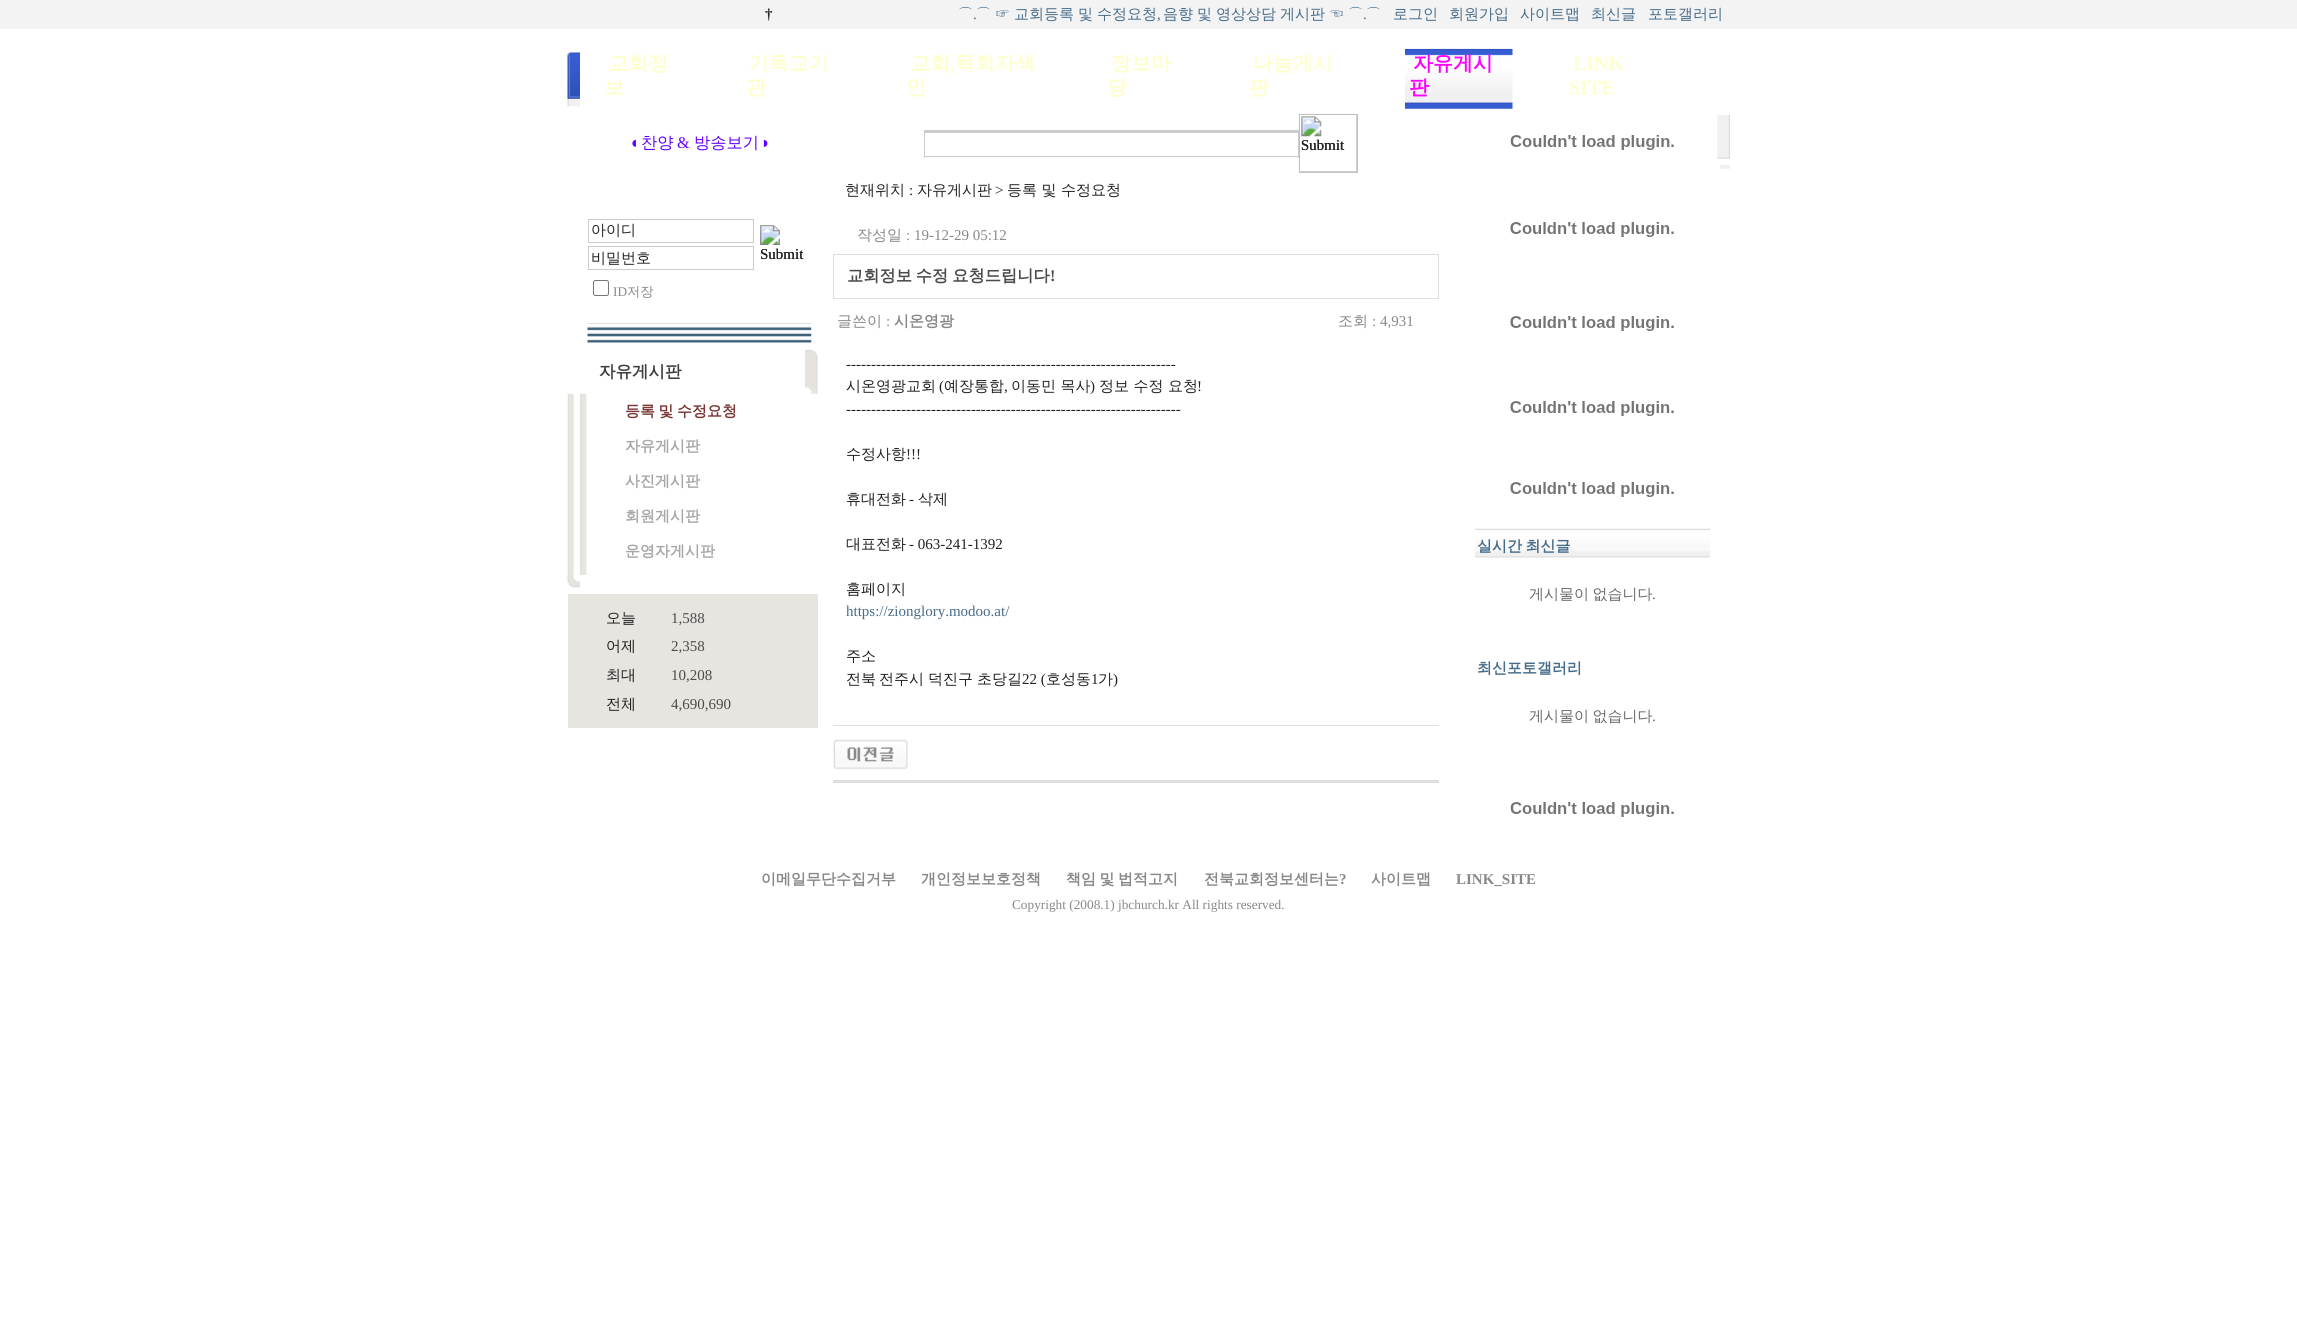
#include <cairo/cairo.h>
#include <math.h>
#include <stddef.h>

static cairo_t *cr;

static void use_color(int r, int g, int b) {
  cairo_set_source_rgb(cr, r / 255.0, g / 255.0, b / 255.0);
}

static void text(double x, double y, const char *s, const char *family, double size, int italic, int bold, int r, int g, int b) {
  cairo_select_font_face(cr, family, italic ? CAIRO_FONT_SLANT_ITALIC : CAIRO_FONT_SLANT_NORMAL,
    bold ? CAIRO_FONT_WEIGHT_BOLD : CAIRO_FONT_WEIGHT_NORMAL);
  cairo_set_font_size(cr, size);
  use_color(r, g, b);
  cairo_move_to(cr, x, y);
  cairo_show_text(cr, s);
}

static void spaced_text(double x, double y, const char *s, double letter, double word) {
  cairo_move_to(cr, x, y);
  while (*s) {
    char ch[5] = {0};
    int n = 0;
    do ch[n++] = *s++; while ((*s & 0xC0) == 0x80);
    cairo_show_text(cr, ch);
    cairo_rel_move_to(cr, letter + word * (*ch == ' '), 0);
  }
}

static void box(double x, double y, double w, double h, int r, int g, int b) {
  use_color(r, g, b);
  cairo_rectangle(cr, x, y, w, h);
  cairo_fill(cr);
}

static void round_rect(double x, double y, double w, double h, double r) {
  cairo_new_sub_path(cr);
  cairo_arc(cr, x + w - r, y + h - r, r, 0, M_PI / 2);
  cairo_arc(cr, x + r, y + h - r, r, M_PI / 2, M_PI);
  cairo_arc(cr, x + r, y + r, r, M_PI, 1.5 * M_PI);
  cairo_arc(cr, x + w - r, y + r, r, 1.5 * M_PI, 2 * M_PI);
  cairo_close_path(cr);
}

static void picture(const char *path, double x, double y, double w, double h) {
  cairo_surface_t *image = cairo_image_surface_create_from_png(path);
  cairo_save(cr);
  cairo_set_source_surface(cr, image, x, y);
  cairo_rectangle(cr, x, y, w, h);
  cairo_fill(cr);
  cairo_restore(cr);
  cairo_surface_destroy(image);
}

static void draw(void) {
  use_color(255, 255, 255);
  cairo_paint(cr);
  box(0, 0, 2297, 29, 243, 243, 243);
  picture("img_01.png", 567, 52, 13, 55);
  picture("img_02.png", 1405, 48, 108, 62);
  box(924, 130, 375, 3, 204, 204, 204);
  box(1298, 130, 1, 28, 204, 204, 204);
  box(924, 156, 375, 1, 204, 204, 204);
  box(924, 130, 1, 28, 204, 204, 204);
  picture("img_03.png", 1298, 113, 59, 59);
  cairo_rectangle(cr, 1299.5, 114.5, 58, 58);
  use_color(192, 192, 192);
  cairo_set_line_width(cr, 1);
  cairo_stroke(cr);
  picture("img_04.png", 1510, 135, 164, 15);
  picture("img_05.png", 1717, 115, 13, 54);
  cairo_rectangle(cr, 588.5, 219.5, 165, 23);
  use_color(204, 204, 204);
  cairo_stroke(cr);
  picture("img_06.png", 760, 225, 44, 34);
  cairo_rectangle(cr, 588.5, 246.5, 165, 23);
  cairo_stroke(cr);
  round_rect(593.5, 280.5, 15, 15, 2);
  use_color(118, 118, 118);
  cairo_stroke(cr);
  picture("img_07.png", 587, 323, 225, 20);
  picture("img_08.png", 805, 350, 13, 44);
  picture("img_09.png", 567, 393, 20, 182);
  picture("img_10.png", 567, 575, 13, 13);
  box(568, 594, 250, 134, 231, 229, 224);
  cairo_rectangle(cr, 833.5, 254.5, 605, 44);
  use_color(221, 221, 221);
  cairo_stroke(cr);
  box(833, 725, 606, 1, 221, 221, 221);
  picture("img_11.png", 833, 739, 75, 30);
  box(833, 780, 606, 3, 222, 222, 222);
  picture("img_12.png", 1510, 222, 164, 15);
  picture("img_12.png", 1510, 316, 164, 15);
  picture("img_12.png", 1510, 401, 164, 15);
  picture("img_12.png", 1510, 482, 164, 15);
  picture("img_13.png", 1475, 528, 235, 30);
  picture("img_14.png", 1510, 802, 164, 15);
  text(765, 19, "†", "Liberation Serif", 15, 0, 1, 34, 34, 34);
  text(958, 19, "⌒", "WenQuanYi Zen Hei Medium", 15, 0, 0, 70, 108, 138);
  text(973, 19, ".", "Liberation Serif", 15, 0, 0, 70, 108, 138);
  cairo_select_font_face(cr, "WenQuanYi Zen Hei Medium", CAIRO_FONT_SLANT_NORMAL, CAIRO_FONT_WEIGHT_NORMAL);
  spaced_text(976, 19, "⌒ ☞ 교회등록 및 수정요청", 0, -0.5);
  text(1157, 19, ",", "Liberation Serif", 15, 0, 0, 70, 108, 138);
  cairo_select_font_face(cr, "WenQuanYi Zen Hei Medium", CAIRO_FONT_SLANT_NORMAL, CAIRO_FONT_WEIGHT_NORMAL);
  spaced_text(1163, 19, "음향 및 영상상담 게시판 ☜ ⌒", 0, -0.5);
  text(1363, 19, ".", "Liberation Serif", 15, 0, 0, 70, 108, 138);
  text(1366, 19, "⌒", "WenQuanYi Zen Hei Medium", 15, 0, 0, 70, 108, 138);
  text(1393, 19, "로그인", "WenQuanYi Zen Hei Medium", 15, 0, 0, 70, 108, 138);
  text(1449, 19, "회원가입", "WenQuanYi Zen Hei Medium", 15, 0, 0, 70, 108, 138);
  text(1520, 19, "사이트맵", "WenQuanYi Zen Hei Medium", 15, 0, 0, 70, 108, 138);
  text(1591, 19, "최신글", "WenQuanYi Zen Hei Medium", 15, 0, 0, 70, 108, 138);
  text(1648, 19, "포토갤러리", "WenQuanYi Zen Hei Medium", 15, 0, 0, 70, 108, 138);
  text(608, 70, "교회정", "WenQuanYi Zen Hei", 20, 0, 1, 255, 255, 204);
  text(604, 94, "보", "WenQuanYi Zen Hei", 20, 0, 1, 255, 255, 204);
  text(749, 70, "기독교기", "WenQuanYi Zen Hei", 20, 0, 1, 255, 255, 204);
  text(746, 94, "관", "WenQuanYi Zen Hei", 20, 0, 1, 255, 255, 204);
  text(910, 70, "교회", "WenQuanYi Zen Hei", 20, 0, 1, 255, 255, 204);
  text(950, 70, ",", "Liberation Serif", 20, 0, 1, 255, 255, 204);
  text(955, 70, "목회자색", "WenQuanYi Zen Hei", 20, 0, 1, 255, 255, 204);
  text(906, 94, "인", "WenQuanYi Zen Hei", 20, 0, 1, 255, 255, 204);
  text(1111, 70, "정보마", "WenQuanYi Zen Hei", 20, 0, 1, 255, 255, 204);
  text(1107, 94, "당", "WenQuanYi Zen Hei", 20, 0, 1, 255, 255, 204);
  text(1253, 70, "나눔게시", "WenQuanYi Zen Hei", 20, 0, 1, 255, 255, 204);
  text(1249, 94, "판", "WenQuanYi Zen Hei", 20, 0, 1, 255, 255, 204);
  text(1413, 70, "자유게시", "WenQuanYi Zen Hei", 20, 0, 1, 255, 0, 255);
  text(1409, 94, "판", "WenQuanYi Zen Hei", 20, 0, 1, 255, 0, 255);
  text(1573, 70, "LINK", "Liberation Serif", 20, 0, 1, 255, 255, 204);
  text(1569, 94, "SITE", "Liberation Serif", 20, 0, 1, 255, 255, 204);
  text(631, 148, "◐", "Liberation Serif", 16.25, 0, 0, 99, 0, 255);
  text(641, 148, "찬양", "WenQuanYi Zen Hei Medium", 16.25, 0, 0, 99, 0, 255);
  text(677, 148, "&", "Liberation Serif", 16.25, 0, 0, 99, 0, 255);
  text(694, 148, "방송보기", "WenQuanYi Zen Hei Medium", 16.25, 0, 0, 99, 0, 255);
  text(759, 148, "◑", "Liberation Serif", 16.25, 0, 0, 99, 0, 255);
  text(1301, 150, "Submit", "Liberation Serif", 15, 0, 0, 34, 34, 34);
  text(591, 235, "아이디", "WenQuanYi Zen Hei Medium", 15, 0, 0, 34, 34, 34);
  text(760, 259, "Submit", "Liberation Serif", 15, 0, 0, 34, 34, 34);
  text(591, 263, "비밀번호", "WenQuanYi Zen Hei Medium", 15, 0, 0, 34, 34, 34);
  text(613, 296, "ID", "Liberation Serif", 13.3, 0, 0, 136, 136, 136);
  text(627, 296, "저장", "WenQuanYi Zen Hei Medium", 13.3, 0, 0, 136, 136, 136);
  text(599, 377, "자유게시판", "WenQuanYi Zen Hei", 16.5, 0, 1, 63, 63, 63);
  cairo_set_font_size(cr, 15);
  use_color(123, 54, 54);
  spaced_text(625, 416, "등록 및 수정요청", 0, -1);
  text(625, 451, "자유게시판", "WenQuanYi Zen Hei", 15, 0, 1, 168, 166, 166);
  text(625, 486, "사진게시판", "WenQuanYi Zen Hei", 15, 0, 1, 168, 166, 166);
  text(625, 521, "회원게시판", "WenQuanYi Zen Hei", 15, 0, 1, 168, 166, 166);
  text(625, 556, "운영자게시판", "WenQuanYi Zen Hei", 15, 0, 1, 168, 166, 166);
  text(606, 623, "오늘", "WenQuanYi Zen Hei Medium", 15, 0, 0, 34, 34, 34);
  text(671, 623, "1,588", "Liberation Serif", 15, 0, 0, 75, 75, 75);
  text(606, 651, "어제", "WenQuanYi Zen Hei Medium", 15, 0, 0, 34, 34, 34);
  text(671, 651, "2,358", "Liberation Serif", 15, 0, 0, 75, 75, 75);
  text(606, 680, "최대", "WenQuanYi Zen Hei Medium", 15, 0, 0, 34, 34, 34);
  text(671, 680, "10,208", "Liberation Serif", 15, 0, 0, 75, 75, 75);
  text(606, 709, "전체", "WenQuanYi Zen Hei Medium", 15, 0, 0, 34, 34, 34);
  text(671, 709, "4,690,690", "Liberation Serif", 15, 0, 0, 75, 75, 75);
  text(845, 195, "현재위치", "WenQuanYi Zen Hei Medium", 15, 0, 0, 34, 34, 34);
  text(909, 195, ":", "Liberation Serif", 15, 0, 0, 34, 34, 34);
  text(917, 195, "자유게시판", "WenQuanYi Zen Hei Medium", 15, 0, 0, 34, 34, 34);
  text(995, 195, ">", "Liberation Serif", 15, 0, 0, 34, 34, 34);
  text(1007, 195, "등록 및 수정요청", "WenQuanYi Zen Hei Medium", 15, 0, 0, 34, 34, 34);
  text(857, 240, "작성일", "WenQuanYi Zen Hei Medium", 15, 0, 0, 136, 136, 136);
  text(906, 240, ": 19-12-29 05:12", "Liberation Serif", 15, 0, 0, 136, 136, 136);
  cairo_select_font_face(cr, "WenQuanYi Zen Hei", CAIRO_FONT_SLANT_NORMAL, CAIRO_FONT_WEIGHT_BOLD);
  cairo_set_font_size(cr, 16.25);
  use_color(75, 75, 75);
  spaced_text(847, 281, "교회정보 수정 요청드립니다", 0, -1);
  text(1050, 281, "!", "Liberation Serif", 16.25, 0, 1, 75, 75, 75);
  text(837, 326, "글쓴이", "WenQuanYi Zen Hei Medium", 15, 0, 0, 136, 136, 136);
  text(886, 326, ":", "Liberation Serif", 15, 0, 0, 136, 136, 136);
  text(894, 326, "시온영광", "WenQuanYi Zen Hei", 15, 0, 1, 136, 136, 136);
  text(1338, 326, "조회", "WenQuanYi Zen Hei Medium", 15, 0, 0, 136, 136, 136);
  text(1372, 326, ": 4,931", "Liberation Serif", 15, 0, 0, 136, 136, 136);
  text(846, 369, "------------------------------------------------------------------", "Liberation Serif", 15, 0, 0, 34, 34, 34);
  text(846, 391, "시온영광교회", "WenQuanYi Zen Hei Medium", 15, 0, 0, 34, 34, 34);
  text(939, 391, "(", "Liberation Serif", 15, 0, 0, 34, 34, 34);
  text(944, 391, "예장통합", "WenQuanYi Zen Hei Medium", 15, 0, 0, 34, 34, 34);
  text(1004, 391, ",", "Liberation Serif", 15, 0, 0, 34, 34, 34);
  text(1011, 391, "이동민 목사", "WenQuanYi Zen Hei Medium", 15, 0, 0, 34, 34, 34);
  text(1090, 391, ")", "Liberation Serif", 15, 0, 0, 34, 34, 34);
  text(1099, 391, "정보 수정 요청", "WenQuanYi Zen Hei Medium", 15, 0, 0, 34, 34, 34);
  text(1197, 391, "!", "Liberation Serif", 15, 0, 0, 34, 34, 34);
  text(846, 414, "-------------------------------------------------------------------", "Liberation Serif", 15, 0, 0, 34, 34, 34);
  text(846, 459, "수정사항", "WenQuanYi Zen Hei Medium", 15, 0, 0, 34, 34, 34);
  text(906, 459, "!!!", "Liberation Serif", 15, 0, 0, 34, 34, 34);
  text(846, 504, "휴대전화", "WenQuanYi Zen Hei Medium", 15, 0, 0, 34, 34, 34);
  text(909, 504, "-", "Liberation Serif", 15, 0, 0, 34, 34, 34);
  text(918, 504, "삭제", "WenQuanYi Zen Hei Medium", 15, 0, 0, 34, 34, 34);
  text(846, 549, "대표전화", "WenQuanYi Zen Hei Medium", 15, 0, 0, 34, 34, 34);
  text(909, 549, "- 063-241-1392", "Liberation Serif", 15, 0, 0, 34, 34, 34);
  text(846, 594, "홈페이지", "WenQuanYi Zen Hei Medium", 15, 0, 0, 34, 34, 34);
  text(846, 616, "https://zionglory.modoo.at/", "Liberation Serif", 15, 0, 0, 70, 108, 138);
  text(846, 661, "주소", "WenQuanYi Zen Hei Medium", 15, 0, 0, 34, 34, 34);
  text(846, 684, "전북", "WenQuanYi Zen Hei Medium", 15, 0, 0, 34, 34, 34);
  text(879, 684, "전주시", "WenQuanYi Zen Hei Medium", 15, 0, 0, 34, 34, 34);
  text(928, 684, "덕진구", "WenQuanYi Zen Hei Medium", 15, 0, 0, 34, 34, 34);
  text(977, 684, "초당길", "WenQuanYi Zen Hei Medium", 15, 0, 0, 34, 34, 34);
  text(1022, 684, "22 (", "Liberation Serif", 15, 0, 0, 34, 34, 34);
  text(1046, 684, "호성동", "WenQuanYi Zen Hei Medium", 15, 0, 0, 34, 34, 34);
  text(1091, 684, "1", "Liberation Serif", 15, 0, 0, 34, 34, 34);
  text(1098, 684, "가", "WenQuanYi Zen Hei Medium", 15, 0, 0, 34, 34, 34);
  text(1113, 684, ")", "Liberation Serif", 15, 0, 0, 34, 34, 34);
  cairo_select_font_face(cr, "WenQuanYi Zen Hei", CAIRO_FONT_SLANT_NORMAL, CAIRO_FONT_WEIGHT_BOLD);
  use_color(70, 108, 138);
  spaced_text(1477, 551, "실시간 최신글", 0, -1);
  cairo_select_font_face(cr, "WenQuanYi Zen Hei Medium", CAIRO_FONT_SLANT_NORMAL, CAIRO_FONT_WEIGHT_NORMAL);
  use_color(106, 106, 106);
  spaced_text(1529, 599, "게시물이 없습니다", 0, -1);
  text(1652, 599, ".", "Liberation Serif", 15, 0, 0, 106, 106, 106);
  text(1477, 673, "최신포토갤러리", "WenQuanYi Zen Hei", 15, 0, 1, 70, 108, 138);
  cairo_select_font_face(cr, "WenQuanYi Zen Hei Medium", CAIRO_FONT_SLANT_NORMAL, CAIRO_FONT_WEIGHT_NORMAL);
  use_color(106, 106, 106);
  spaced_text(1529, 721, "게시물이 없습니다", 0, -1);
  text(1652, 721, ".", "Liberation Serif", 15, 0, 0, 106, 106, 106);
  text(761, 884, "이메일무단수집거부", "WenQuanYi Zen Hei", 15, 0, 1, 136, 136, 136);
  text(921, 884, "개인정보보호정책", "WenQuanYi Zen Hei", 15, 0, 1, 136, 136, 136);
  spaced_text(1066, 884, "책임 및 법적고지", 0, -1);
  text(1204, 884, "전북교회정보센터는", "WenQuanYi Zen Hei", 15, 0, 1, 136, 136, 136);
  text(1339, 884, "?", "Liberation Serif", 15, 0, 1, 136, 136, 136);
  text(1371, 884, "사이트맵", "WenQuanYi Zen Hei", 15, 0, 1, 136, 136, 136);
  text(1456, 884, "LINK_SITE", "Liberation Serif", 15, 0, 1, 136, 136, 136);
  text(1012, 909, "Copyright (2008.1) jbchurch.kr All rights reserved.", "Liberation Serif", 13.3, 0, 0, 136, 136, 136);
}

int main(void) {
  cairo_surface_t *surface = cairo_image_surface_create(CAIRO_FORMAT_RGB24, 2297, 1325);
  cr = cairo_create(surface);
  cairo_font_options_t *options = cairo_font_options_create();
  cairo_font_options_set_hint_metrics(options, CAIRO_HINT_METRICS_OFF);
  cairo_font_options_set_hint_style(options, CAIRO_HINT_STYLE_NONE);
  cairo_set_font_options(cr, options);
  cairo_set_miter_limit(cr, 4);
  draw();
  cairo_surface_write_to_png(surface, "out.png");
  cairo_font_options_destroy(options);
  cairo_destroy(cr);
  cairo_surface_destroy(surface);
  return 0;
}
